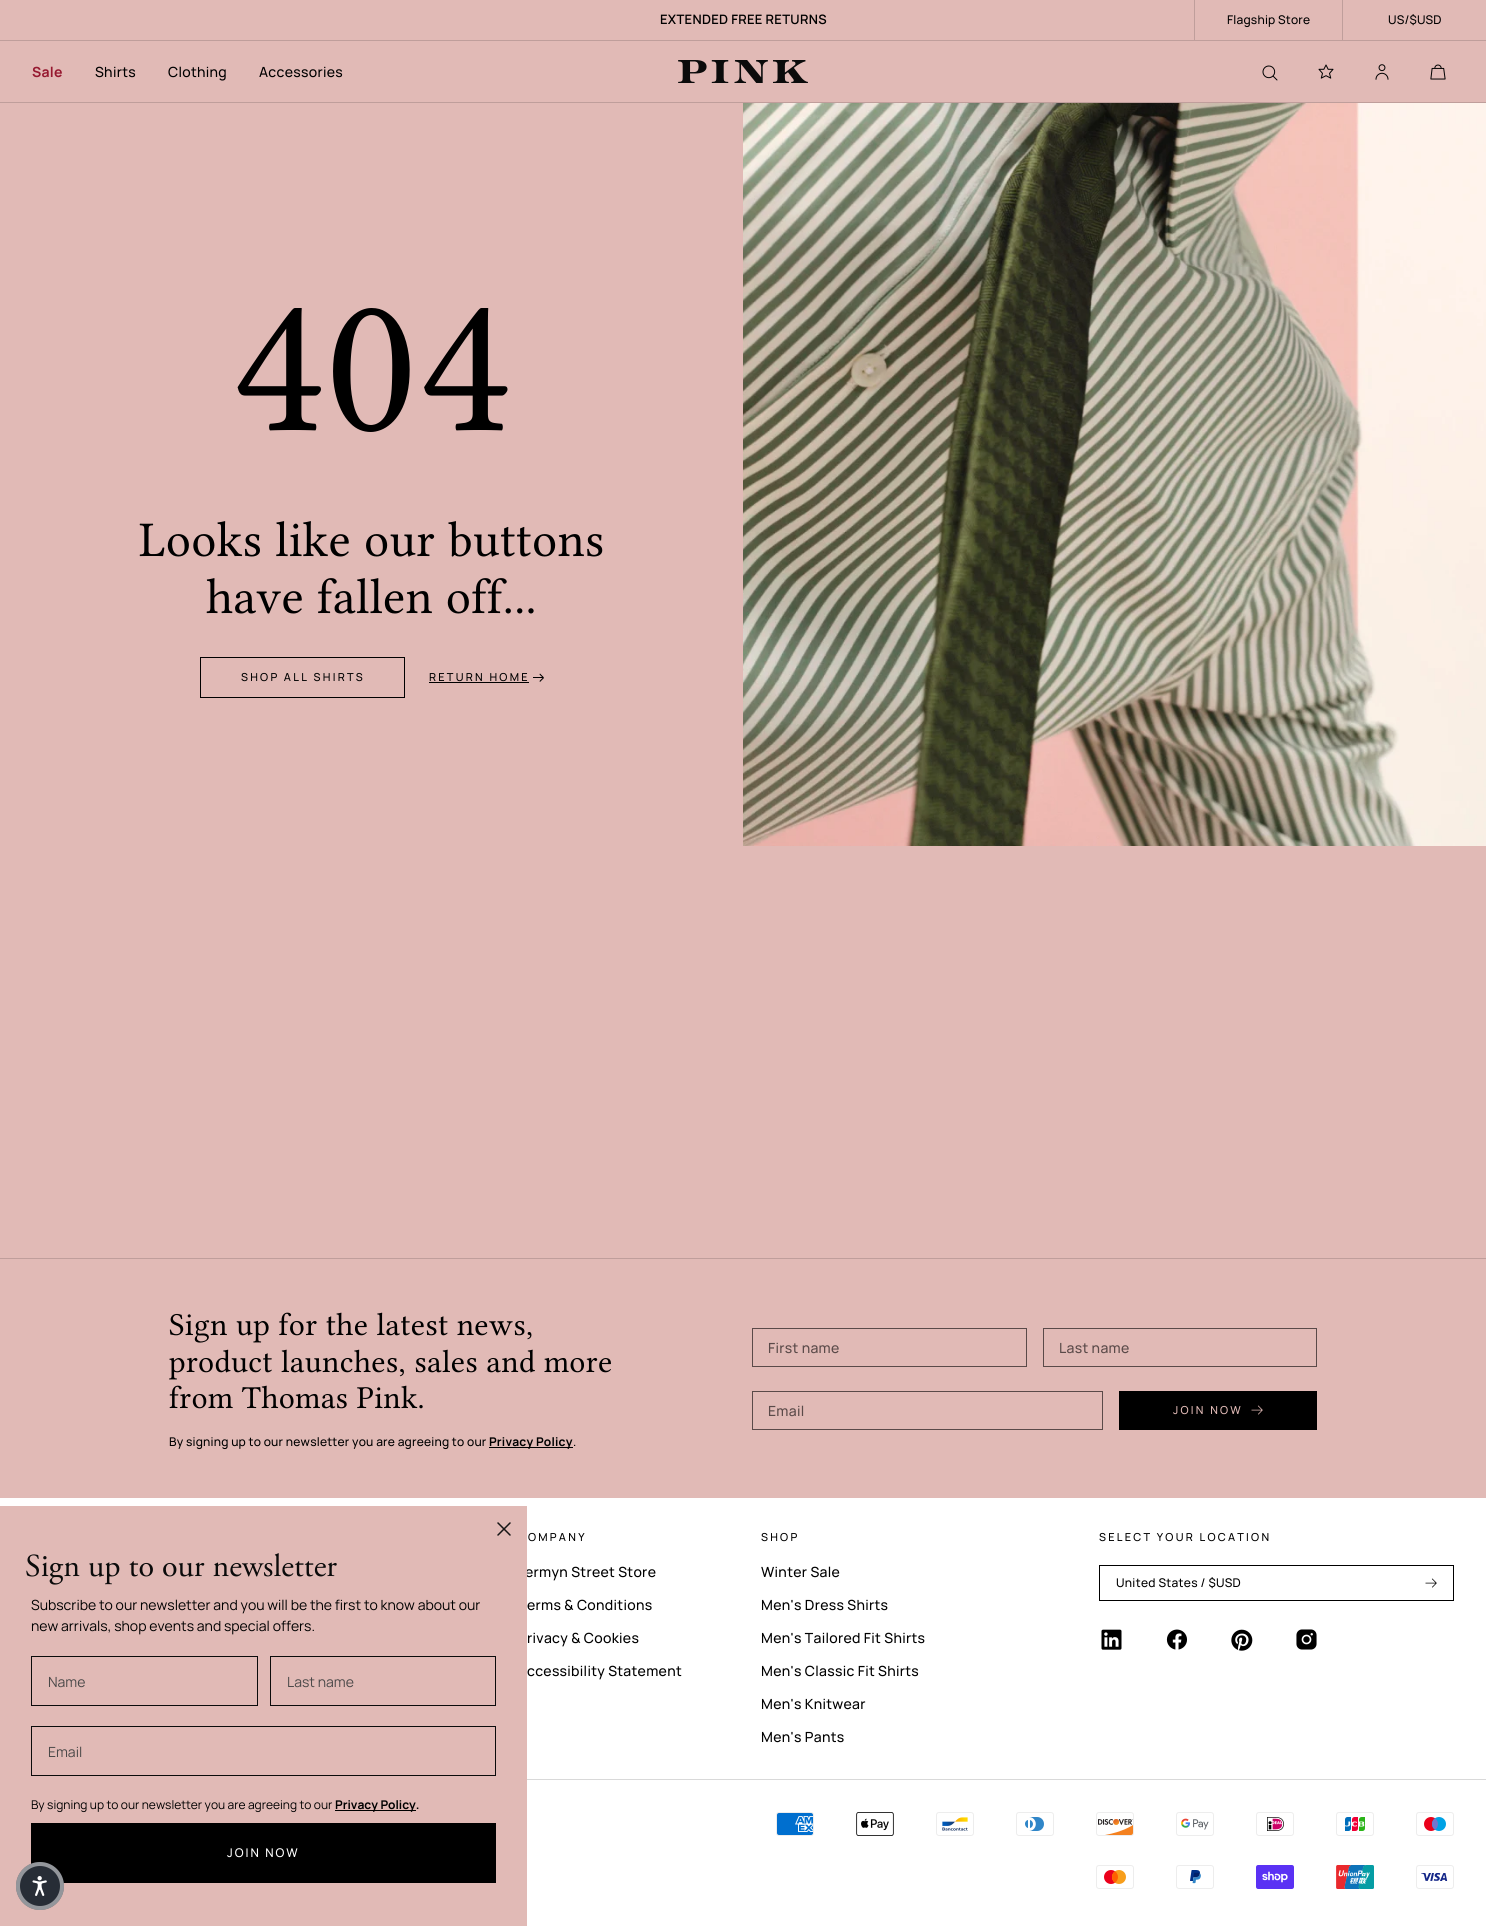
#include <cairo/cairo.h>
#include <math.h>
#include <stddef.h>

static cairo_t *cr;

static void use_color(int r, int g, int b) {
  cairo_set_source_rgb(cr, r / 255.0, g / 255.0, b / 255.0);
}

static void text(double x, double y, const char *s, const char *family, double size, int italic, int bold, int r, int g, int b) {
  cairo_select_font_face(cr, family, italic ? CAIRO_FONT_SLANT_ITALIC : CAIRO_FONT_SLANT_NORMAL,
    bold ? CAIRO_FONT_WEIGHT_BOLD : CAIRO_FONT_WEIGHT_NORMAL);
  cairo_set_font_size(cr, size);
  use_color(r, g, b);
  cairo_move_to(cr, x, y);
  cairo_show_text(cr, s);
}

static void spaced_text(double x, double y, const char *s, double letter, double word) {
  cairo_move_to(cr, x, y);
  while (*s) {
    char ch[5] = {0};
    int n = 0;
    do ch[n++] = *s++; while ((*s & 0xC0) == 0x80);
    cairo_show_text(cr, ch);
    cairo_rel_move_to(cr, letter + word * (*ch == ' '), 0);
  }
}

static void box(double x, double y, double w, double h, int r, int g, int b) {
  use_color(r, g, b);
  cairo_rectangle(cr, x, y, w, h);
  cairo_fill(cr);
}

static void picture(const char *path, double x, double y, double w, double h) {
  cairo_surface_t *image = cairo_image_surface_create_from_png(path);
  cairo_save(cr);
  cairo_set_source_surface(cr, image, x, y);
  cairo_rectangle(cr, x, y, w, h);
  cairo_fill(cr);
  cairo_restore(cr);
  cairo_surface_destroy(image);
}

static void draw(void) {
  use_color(225, 186, 182);
  cairo_paint(cr);
  box(0, 40, 1486, 1, 191, 158, 155);
  box(1194, 0, 1, 40, 191, 158, 155);
  box(1342, 0, 1, 40, 191, 158, 155);
  box(0, 102, 1486, 1, 191, 158, 155);
  picture("img_01.png", 678, 60, 130, 23);
  picture("img_02.png", 1262, 65, 16, 16);
  picture("img_03.png", 1318, 64, 16, 15);
  picture("img_04.png", 1375, 64, 14, 16);
  picture("img_05.png", 1430, 64, 16, 16);
  cairo_rectangle(cr, 200.5, 657.5, 204, 40);
  use_color(0, 0, 0);
  cairo_set_line_width(cr, 1);
  cairo_stroke(cr);
  box(429, 682, 100, 1, 0, 0, 0);
  box(533, 677, 10, 1, 0, 0, 0);
  cairo_new_path(cr);
  cairo_move_to(cr, 540, 673.5);
  cairo_line_to(cr, 544, 677.5);
  cairo_line_to(cr, 543, 678);
  cairo_line_to(cr, 539.5, 674.5);
  cairo_close_path(cr);
  cairo_fill(cr);
  cairo_new_path(cr);
  cairo_move_to(cr, 539.5, 681);
  cairo_line_to(cr, 543, 677.5);
  cairo_line_to(cr, 544, 678);
  cairo_line_to(cr, 540, 682);
  cairo_close_path(cr);
  cairo_fill(cr);
  picture("img_06.png", 743, 103, 743, 743);
  box(0, 1258, 1486, 1, 191, 158, 155);
  box(489, 1447, 84, 1, 0, 0, 0);
  cairo_rectangle(cr, 752.5, 1328.5, 274, 38);
  use_color(90, 74, 73);
  cairo_stroke(cr);
  cairo_rectangle(cr, 1043.5, 1328.5, 273, 38);
  cairo_stroke(cr);
  cairo_rectangle(cr, 752.5, 1391.5, 350, 38);
  cairo_stroke(cr);
  box(1119, 1391, 198, 39, 0, 0, 0);
  picture("img_07.png", 1251, 1405, 12, 10);
  box(0, 1498, 1486, 428, 255, 255, 255);
  box(527, 1779, 959, 1, 217, 217, 217);
  cairo_rectangle(cr, 1099.5, 1565.5, 354, 35);
  use_color(0, 0, 0);
  cairo_stroke(cr);
  picture("img_08.png", 1425, 1578, 12, 10);
  picture("img_09.png", 1101, 1629, 21, 21);
  picture("img_10.png", 1166, 1629, 21, 21);
  picture("img_11.png", 1231, 1629, 22, 22);
  picture("img_12.png", 1296, 1629, 21, 21);
  picture("img_13.png", 776, 1812, 38, 24);
  picture("img_14.png", 856, 1812, 38, 24);
  picture("img_15.png", 936, 1812, 38, 24);
  picture("img_16.png", 1016, 1812, 38, 24);
  picture("img_17.png", 1096, 1812, 38, 24);
  picture("img_18.png", 1176, 1812, 38, 24);
  picture("img_19.png", 1256, 1812, 38, 24);
  picture("img_20.png", 1336, 1812, 38, 24);
  picture("img_21.png", 1416, 1812, 38, 24);
  picture("img_22.png", 1096, 1865, 38, 24);
  picture("img_23.png", 1176, 1865, 38, 24);
  picture("img_24.png", 1256, 1865, 38, 24);
  picture("img_25.png", 1336, 1865, 38, 24);
  picture("img_26.png", 1416, 1865, 38, 24);
  cairo_select_font_face(cr, "Manrope SemiBold", CAIRO_FONT_SLANT_NORMAL, CAIRO_FONT_WEIGHT_NORMAL);
  cairo_set_font_size(cr, 13);
  spaced_text(660, 24, "EXTENDED FREE RETURNS", 0.3, 0);
  cairo_select_font_face(cr, "Manrope Medium", CAIRO_FONT_SLANT_NORMAL, CAIRO_FONT_WEIGHT_NORMAL);
  cairo_set_font_size(cr, 12);
  spaced_text(1227, 24, "Flagship Store", 0.2, 0);
  spaced_text(1388, 24, "US/$USD", 0.2, 0);
  cairo_select_font_face(cr, "Manrope", CAIRO_FONT_SLANT_NORMAL, CAIRO_FONT_WEIGHT_BOLD);
  cairo_set_font_size(cr, 14);
  use_color(150, 25, 48);
  spaced_text(32, 77, "Sale", 0.3, 0);
  cairo_select_font_face(cr, "Manrope Medium", CAIRO_FONT_SLANT_NORMAL, CAIRO_FONT_WEIGHT_NORMAL);
  use_color(0, 0, 0);
  spaced_text(95, 77, "Shirts", 0.3, 0);
  spaced_text(168, 77, "Clothing", 0.3, 0);
  spaced_text(259, 77, "Accessories", 0.3, 0);
  cairo_select_font_face(cr, "Libertinus Serif", CAIRO_FONT_SLANT_NORMAL, CAIRO_FONT_WEIGHT_NORMAL);
  cairo_set_font_size(cr, 200);
  spaced_text(232, 430, "404", 0.3, 0);
  cairo_set_font_size(cr, 50);
  spaced_text(139, 556, "Looks like our buttons", 0.3, 0);
  spaced_text(206, 613, "have fallen off...", 0.3, 0);
  cairo_select_font_face(cr, "Manrope Medium", CAIRO_FONT_SLANT_NORMAL, CAIRO_FONT_WEIGHT_NORMAL);
  cairo_set_font_size(cr, 11);
  spaced_text(241, 681, "SHOP ALL SHIRTS", 2.25, 0);
  spaced_text(429, 681, "RETURN HOME", 2.25, 0);
  cairo_select_font_face(cr, "Libertinus Serif", CAIRO_FONT_SLANT_NORMAL, CAIRO_FONT_WEIGHT_NORMAL);
  cairo_set_font_size(cr, 32);
  spaced_text(169, 1335, "Sign up for the latest news,", 0.3, 0);
  spaced_text(169, 1372, "product launches, sales and more", 0.3, 0);
  spaced_text(169, 1408, "from Thomas Pink.", 0.3, 0);
  cairo_select_font_face(cr, "Manrope Medium", CAIRO_FONT_SLANT_NORMAL, CAIRO_FONT_WEIGHT_NORMAL);
  cairo_set_font_size(cr, 12);
  spaced_text(169, 1446, "By signing up to our newsletter you are agreeing to our", 0.2, 0);
  cairo_select_font_face(cr, "Manrope", CAIRO_FONT_SLANT_NORMAL, CAIRO_FONT_WEIGHT_BOLD);
  spaced_text(489, 1446, "Privacy Policy", 0.2, 0);
  cairo_select_font_face(cr, "Manrope Medium", CAIRO_FONT_SLANT_NORMAL, CAIRO_FONT_WEIGHT_NORMAL);
  spaced_text(573, 1446, ".", 0.2, 0);
  cairo_set_font_size(cr, 14);
  use_color(90, 74, 73);
  spaced_text(768, 1353, "First name", 0.3, 0);
  spaced_text(1059, 1353, "Last name", 0.3, 0);
  spaced_text(768, 1416, "Email", 0.3, 0);
  cairo_set_font_size(cr, 11);
  use_color(225, 186, 182);
  spaced_text(1173, 1414, "JOIN NOW", 2.25, 0);
  use_color(0, 0, 0);
  spaced_text(528, 1541, "OMPANY", 2.25, 0);
  cairo_set_font_size(cr, 14);
  spaced_text(525, 1577, "ermyn Street Store", 0.3, 0);
  spaced_text(527, 1610, "erms & Conditions", 0.3, 0);
  spaced_text(527, 1643, "rivacy & Cookies", 0.3, 0);
  spaced_text(527, 1676, "ccessibility Statement", 0.3, 0);
  cairo_set_font_size(cr, 11);
  spaced_text(761, 1541, "SHOP", 2.25, 0);
  cairo_set_font_size(cr, 14);
  spaced_text(761, 1577, "Winter Sale", 0.3, 0);
  spaced_text(761, 1610, "Men's Dress Shirts", 0.3, 0);
  spaced_text(761, 1643, "Men's Tailored Fit Shirts", 0.3, 0);
  spaced_text(761, 1676, "Men's Classic Fit Shirts", 0.3, 0);
  spaced_text(761, 1709, "Men's Knitwear", 0.3, 0);
  spaced_text(761, 1742, "Men's Pants", 0.3, 0);
  cairo_set_font_size(cr, 11);
  spaced_text(1099, 1541, "SELECT YOUR LOCATION", 2.25, 0);
  cairo_set_font_size(cr, 12);
  spaced_text(1116, 1587, "United States / $USD", 0.3, 0);
  box(0, 1506, 527, 420, 225, 186, 182);
  cairo_new_path(cr);
  cairo_move_to(cr, 498, 1523);
  cairo_line_to(cr, 510, 1535);
  cairo_move_to(cr, 498, 1535);
  cairo_line_to(cr, 510, 1523);
  cairo_close_path(cr);
  use_color(22, 22, 22);
  cairo_set_line_width(cr, 1.5);
  cairo_set_line_cap(cr, CAIRO_LINE_CAP_ROUND);
  cairo_set_line_join(cr, CAIRO_LINE_JOIN_ROUND);
  cairo_stroke(cr);
  text(25, 1576, "Sign up to our newsletter", "Adobe Garamond", 32, 0, 0, 11, 11, 11);
  text(31, 1610, "Subscribe to our newsletter and you will be the first to know about our", "Manrope", 14, 0, 0, 0, 0, 0);
  text(31, 1631, "new arrivals, shop events and special offers.", "Manrope", 14, 0, 0, 0, 0, 0);
  cairo_rectangle(cr, 31.5, 1656.5, 226, 49);
  use_color(11, 11, 11);
  cairo_set_line_width(cr, 1);
  cairo_set_line_cap(cr, CAIRO_LINE_CAP_BUTT);
  cairo_set_line_join(cr, CAIRO_LINE_JOIN_MITER);
  cairo_stroke(cr);
  text(48, 1687, "Name", "Manrope", 14, 0, 0, 75, 73, 73);
  cairo_rectangle(cr, 270.5, 1656.5, 225, 49);
  use_color(11, 11, 11);
  cairo_stroke(cr);
  text(287, 1687, "Last name", "Manrope", 14, 0, 0, 75, 73, 73);
  cairo_rectangle(cr, 31.5, 1726.5, 464, 49);
  use_color(11, 11, 11);
  cairo_stroke(cr);
  text(48, 1757, "Email", "Manrope", 14, 0, 0, 75, 73, 73);
  text(31, 1809, "By signing up to our newsletter you are agreeing to our", "Manrope", 12, 0, 0, 0, 0, 0);
  box(335, 1810, 81, 1, 0, 0, 0);
  text(335, 1809, "Privacy Policy.", "Manrope", 12, 0, 1, 0, 0, 0);
  box(31, 1823, 465, 60, 0, 0, 0);
  cairo_select_font_face(cr, "Manrope Medium", CAIRO_FONT_SLANT_NORMAL, CAIRO_FONT_WEIGHT_NORMAL);
  use_color(255, 255, 255);
  spaced_text(227, 1857, "JOIN NOW", 2, 0);
  use_color(39, 45, 54);
  cairo_new_path(cr);
  cairo_arc(cr, 40, 1886, 24, 0, 2 * M_PI);
  cairo_fill(cr);
  cairo_arc(cr, 40, 1886, 22, 0, 2 * M_PI);
  cairo_set_source_rgba(cr, 1, 1, 1, 0.5);
  cairo_set_line_width(cr, 4);
  cairo_stroke(cr);
  picture("img_27.png", 32, 1876, 15, 20);
}

int main(void) {
  cairo_surface_t *surface = cairo_image_surface_create(CAIRO_FORMAT_RGB24, 1486, 1926);
  cr = cairo_create(surface);
  cairo_font_options_t *options = cairo_font_options_create();
  cairo_font_options_set_hint_metrics(options, CAIRO_HINT_METRICS_OFF);
  cairo_font_options_set_hint_style(options, CAIRO_HINT_STYLE_NONE);
  cairo_set_font_options(cr, options);
  cairo_set_miter_limit(cr, 4);
  draw();
  cairo_surface_write_to_png(surface, "out.png");
  cairo_font_options_destroy(options);
  cairo_destroy(cr);
  cairo_surface_destroy(surface);
  return 0;
}
